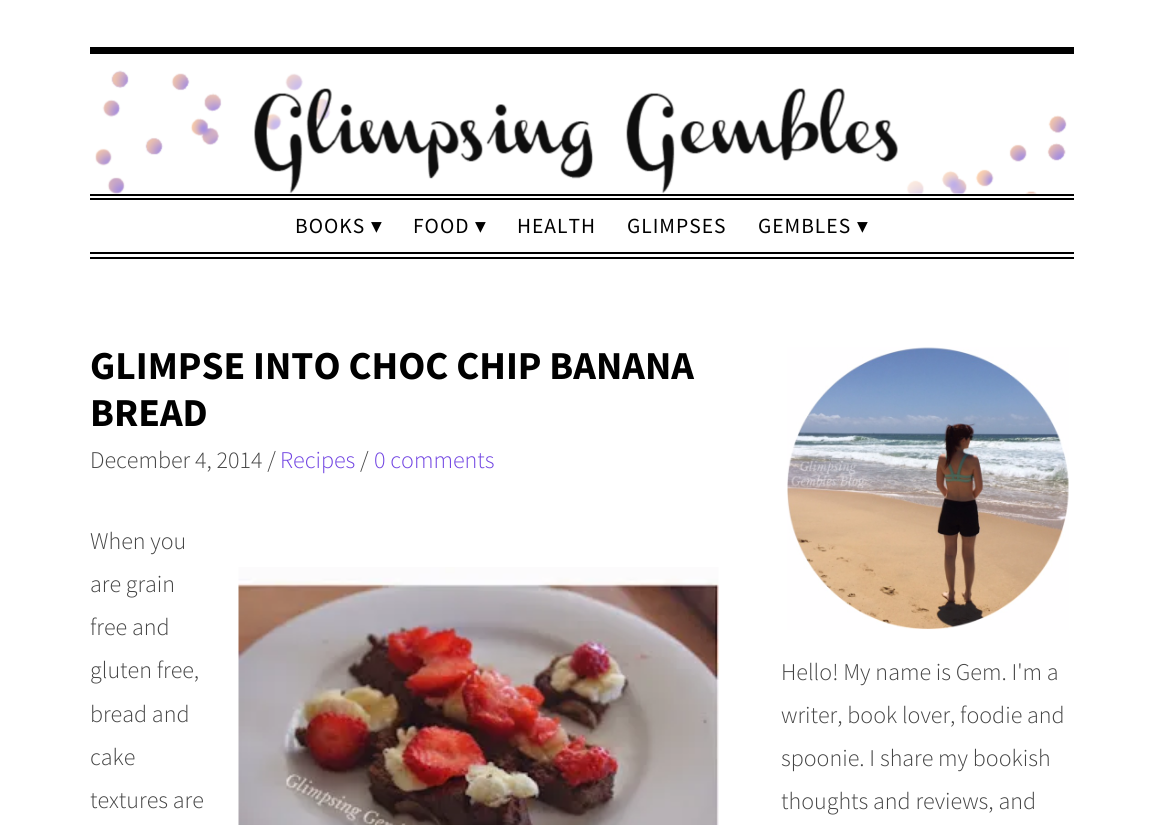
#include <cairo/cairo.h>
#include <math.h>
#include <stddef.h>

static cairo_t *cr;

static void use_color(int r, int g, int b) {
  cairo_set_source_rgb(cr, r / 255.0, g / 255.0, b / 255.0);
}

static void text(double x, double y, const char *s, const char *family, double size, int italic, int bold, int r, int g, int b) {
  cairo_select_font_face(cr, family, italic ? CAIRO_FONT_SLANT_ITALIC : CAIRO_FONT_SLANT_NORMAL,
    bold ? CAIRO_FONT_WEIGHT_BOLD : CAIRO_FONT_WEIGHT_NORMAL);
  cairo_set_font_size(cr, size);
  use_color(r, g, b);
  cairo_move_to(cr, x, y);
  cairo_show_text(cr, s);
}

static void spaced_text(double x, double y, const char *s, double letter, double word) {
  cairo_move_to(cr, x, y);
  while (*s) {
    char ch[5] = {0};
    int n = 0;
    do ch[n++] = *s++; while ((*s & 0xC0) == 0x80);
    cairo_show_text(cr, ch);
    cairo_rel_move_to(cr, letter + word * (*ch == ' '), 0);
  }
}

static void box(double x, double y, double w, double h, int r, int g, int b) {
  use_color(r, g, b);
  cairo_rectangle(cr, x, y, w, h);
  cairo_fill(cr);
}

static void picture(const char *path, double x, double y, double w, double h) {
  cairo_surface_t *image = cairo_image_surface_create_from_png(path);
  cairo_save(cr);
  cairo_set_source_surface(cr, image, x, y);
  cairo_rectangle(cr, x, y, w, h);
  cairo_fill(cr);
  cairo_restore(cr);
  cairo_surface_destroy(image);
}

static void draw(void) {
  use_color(255, 255, 255);
  cairo_paint(cr);
  box(90, 47, 984, 7, 0, 0, 0);
  picture("img_01.png", 95, 70, 972, 124);
  box(90, 194, 984, 2, 0, 0, 0);
  box(90, 198, 984, 2, 0, 0, 0);
  box(90, 252, 984, 2, 0, 0, 0);
  box(90, 257, 984, 2, 0, 0, 0);
  picture("img_02.png", 238, 567, 481, 258);
  picture("img_03.png", 787, 347, 282, 283);
  cairo_select_font_face(cr, "Source Sans Pro", CAIRO_FONT_SLANT_NORMAL, CAIRO_FONT_WEIGHT_NORMAL);
  cairo_set_font_size(cr, 21.5);
  spaced_text(295, 233, "BOOKS", 1, 0);
  cairo_select_font_face(cr, "DejaVu Sans", CAIRO_FONT_SLANT_NORMAL, CAIRO_FONT_WEIGHT_NORMAL);
  spaced_text(371, 233, "▾", 1, 0);
  cairo_select_font_face(cr, "Source Sans Pro", CAIRO_FONT_SLANT_NORMAL, CAIRO_FONT_WEIGHT_NORMAL);
  spaced_text(413, 233, "FOOD", 1, 0);
  cairo_select_font_face(cr, "DejaVu Sans", CAIRO_FONT_SLANT_NORMAL, CAIRO_FONT_WEIGHT_NORMAL);
  spaced_text(475, 233, "▾", 1, 0);
  cairo_select_font_face(cr, "Source Sans Pro", CAIRO_FONT_SLANT_NORMAL, CAIRO_FONT_WEIGHT_NORMAL);
  spaced_text(517, 233, "HEALTH", 1, 0);
  spaced_text(627, 233, "GLIMPSES", 1, 0);
  spaced_text(758, 233, "GEMBLES", 1, 0);
  cairo_select_font_face(cr, "DejaVu Sans", CAIRO_FONT_SLANT_NORMAL, CAIRO_FONT_WEIGHT_NORMAL);
  spaced_text(857, 233, "▾", 1, 0);
  text(90, 379, "GLIMPSE INTO CHOC CHIP BANANA", "Source Sans Pro", 39.6, 0, 1, 0, 0, 0);
  text(90, 426, "BREAD", "Source Sans Pro", 39.6, 0, 1, 0, 0, 0);
  text(90, 468, "December 4, 2014 /", "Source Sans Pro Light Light", 24, 0, 0, 68, 68, 68);
  text(280, 468, "Recipes", "Source Sans Pro Light Light", 24, 0, 0, 113, 68, 226);
  text(360, 468, "/", "Source Sans Pro Light Light", 24, 0, 0, 68, 68, 68);
  text(374, 468, "0 comments", "Source Sans Pro Light Light", 24, 0, 0, 113, 68, 226);
  text(90, 549, "When you", "Source Sans Pro Light Light", 24, 0, 0, 68, 68, 68);
  text(90, 592, "are grain", "Source Sans Pro Light Light", 24, 0, 0, 68, 68, 68);
  text(90, 635, "free and", "Source Sans Pro Light Light", 24, 0, 0, 68, 68, 68);
  text(90, 678, "gluten free,", "Source Sans Pro Light Light", 24, 0, 0, 68, 68, 68);
  text(90, 722, "bread and", "Source Sans Pro Light Light", 24, 0, 0, 68, 68, 68);
  text(90, 765, "cake", "Source Sans Pro Light Light", 24, 0, 0, 68, 68, 68);
  text(90, 808, "textures are", "Source Sans Pro Light Light", 24, 0, 0, 68, 68, 68);
  text(781, 680, "Hello! My name is Gem. I'm a", "Source Sans Pro Light Light", 24, 0, 0, 68, 68, 68);
  text(781, 723, "writer, book lover, foodie and", "Source Sans Pro Light Light", 24, 0, 0, 68, 68, 68);
  text(781, 766, "spoonie. I share my bookish", "Source Sans Pro Light Light", 24, 0, 0, 68, 68, 68);
  text(781, 809, "thoughts and reviews, and", "Source Sans Pro Light Light", 24, 0, 0, 68, 68, 68);
}

int main(void) {
  cairo_surface_t *surface = cairo_image_surface_create(CAIRO_FORMAT_RGB24, 1164, 825);
  cr = cairo_create(surface);
  cairo_font_options_t *options = cairo_font_options_create();
  cairo_font_options_set_hint_metrics(options, CAIRO_HINT_METRICS_OFF);
  cairo_font_options_set_hint_style(options, CAIRO_HINT_STYLE_NONE);
  cairo_set_font_options(cr, options);
  cairo_set_miter_limit(cr, 4);
  draw();
  cairo_surface_write_to_png(surface, "out.png");
  cairo_font_options_destroy(options);
  cairo_destroy(cr);
  cairo_surface_destroy(surface);
  return 0;
}
